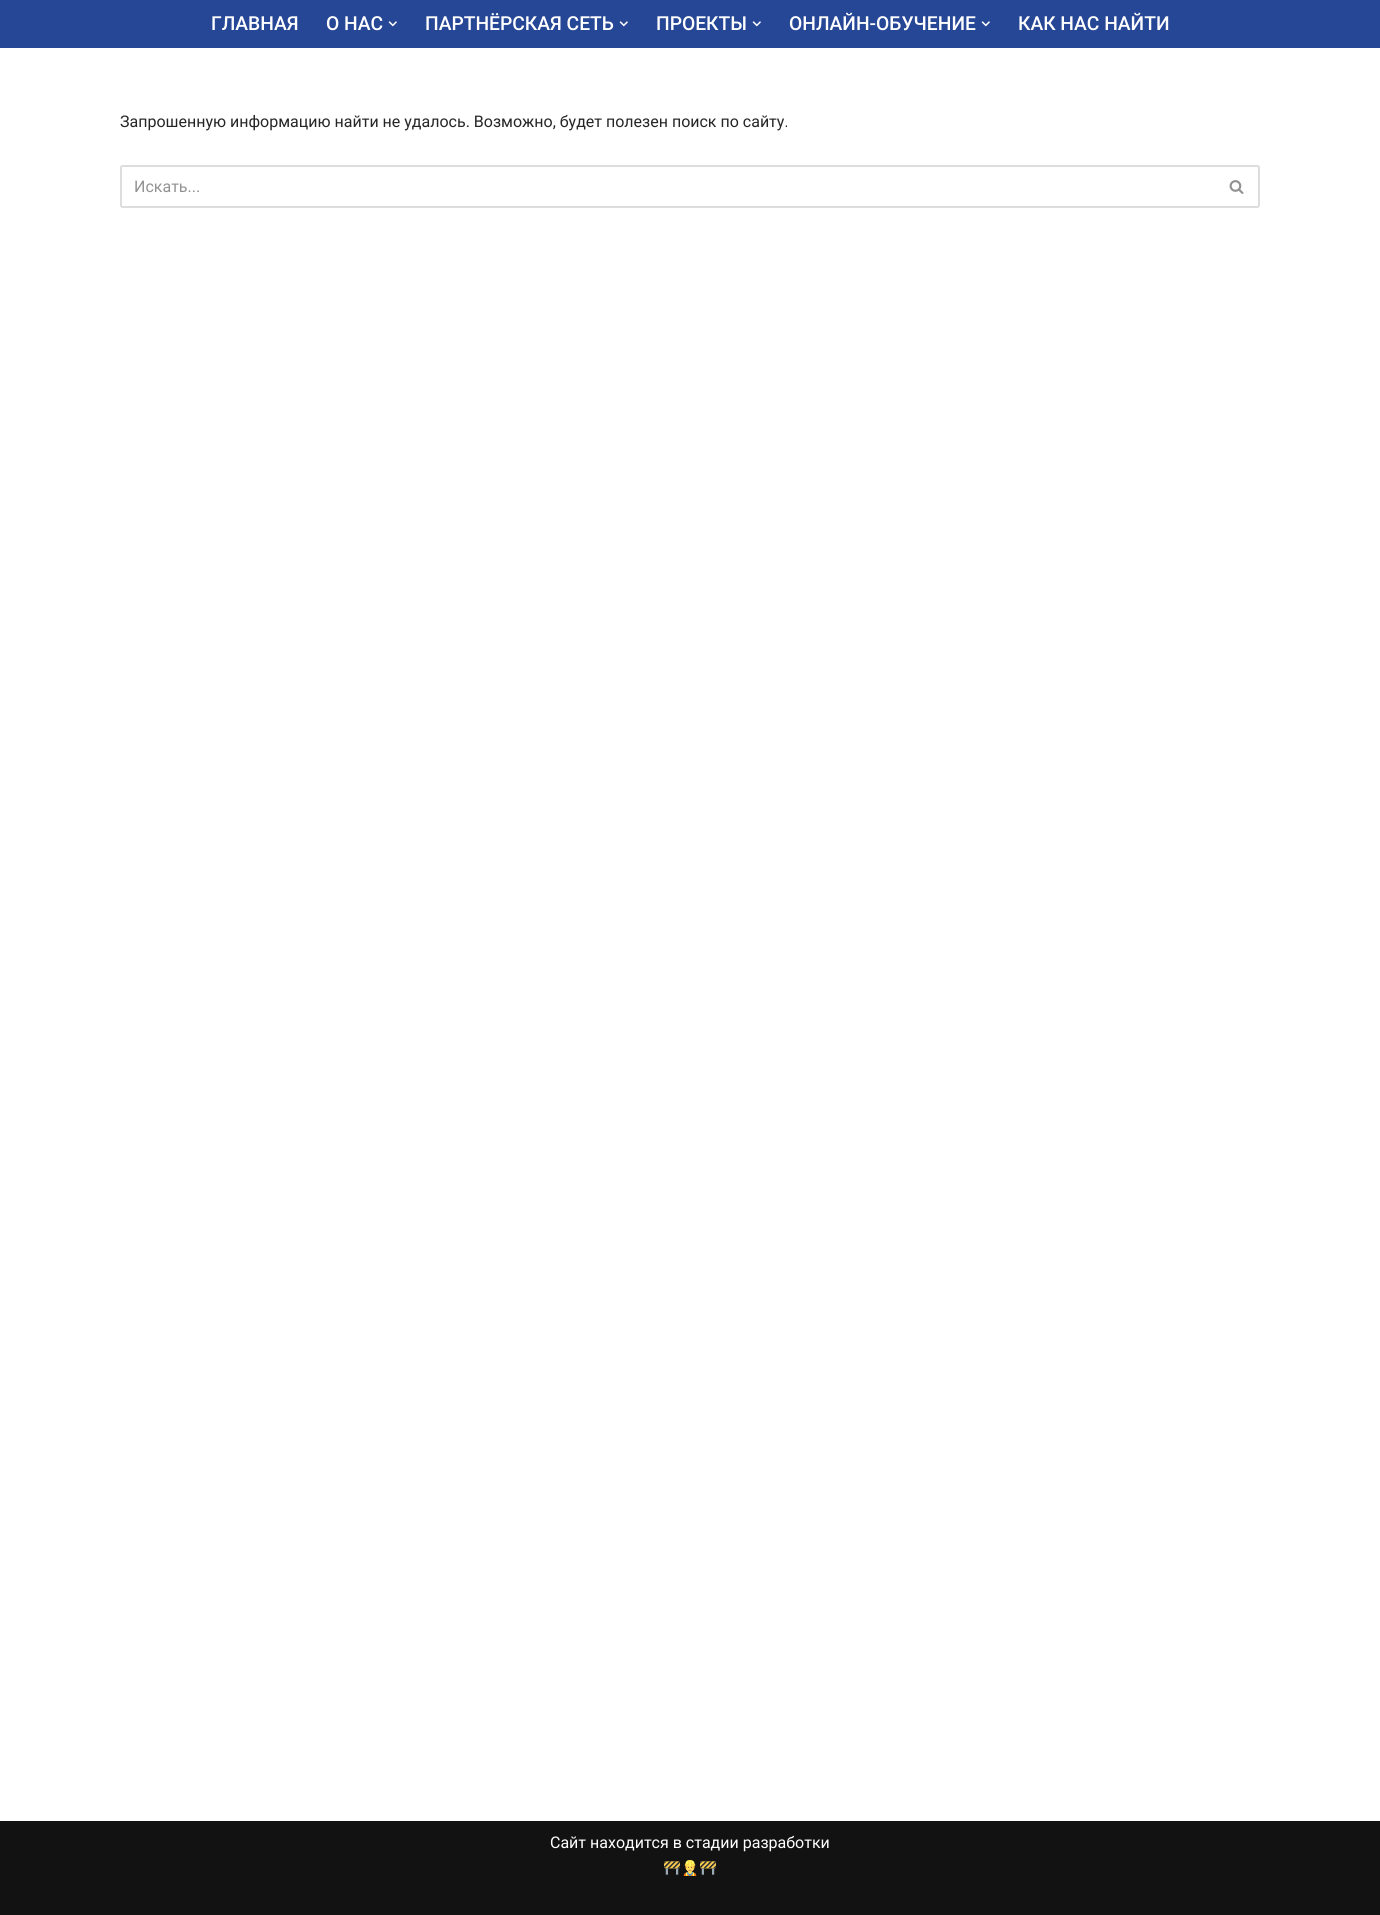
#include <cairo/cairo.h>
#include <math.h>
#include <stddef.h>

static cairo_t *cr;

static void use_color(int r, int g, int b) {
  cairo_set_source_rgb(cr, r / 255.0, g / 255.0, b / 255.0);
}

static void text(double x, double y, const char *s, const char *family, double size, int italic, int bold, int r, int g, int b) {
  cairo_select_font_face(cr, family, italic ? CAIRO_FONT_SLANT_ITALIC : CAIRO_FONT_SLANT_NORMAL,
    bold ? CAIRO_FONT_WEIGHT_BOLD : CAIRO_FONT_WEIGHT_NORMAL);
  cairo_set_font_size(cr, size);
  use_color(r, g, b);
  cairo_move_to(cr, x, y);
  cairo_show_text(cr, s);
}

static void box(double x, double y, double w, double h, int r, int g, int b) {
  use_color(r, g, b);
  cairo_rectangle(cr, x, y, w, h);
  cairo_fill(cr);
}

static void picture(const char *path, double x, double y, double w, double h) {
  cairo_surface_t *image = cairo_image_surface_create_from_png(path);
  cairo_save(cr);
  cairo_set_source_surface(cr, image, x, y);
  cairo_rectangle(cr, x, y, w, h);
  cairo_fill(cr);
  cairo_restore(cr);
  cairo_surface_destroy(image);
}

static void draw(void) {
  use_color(255, 255, 255);
  cairo_paint(cr);
  box(0, 0, 1380, 48, 38, 71, 150);
  picture("img_01.png", 388, 21, 9, 6);
  picture("img_01.png", 619, 21, 9, 6);
  picture("img_01.png", 752, 21, 9, 6);
  picture("img_01.png", 981, 21, 9, 6);
  use_color(221, 221, 221);
  cairo_set_fill_rule(cr, CAIRO_FILL_RULE_EVEN_ODD);
  cairo_new_path(cr);
  cairo_move_to(cr, 123, 165);
  cairo_line_to(cr, 1215, 165);
  cairo_line_to(cr, 1215, 208);
  cairo_line_to(cr, 123, 208);
  cairo_curve_to(cr, 121, 208, 120, 207, 120, 205);
  cairo_line_to(cr, 120, 168);
  cairo_curve_to(cr, 120, 166, 121, 165, 123, 165);
  cairo_close_path(cr);
  cairo_move_to(cr, 123, 167);
  cairo_line_to(cr, 1215, 167);
  cairo_line_to(cr, 1215, 206);
  cairo_line_to(cr, 123, 206);
  cairo_curve_to(cr, 122, 206, 122, 206, 122, 205);
  cairo_line_to(cr, 122, 168);
  cairo_curve_to(cr, 122, 167, 122, 167, 123, 167);
  cairo_close_path(cr);
  cairo_fill(cr);
  cairo_new_path(cr);
  cairo_move_to(cr, 1215, 165);
  cairo_line_to(cr, 1257, 165);
  cairo_curve_to(cr, 1259, 165, 1260, 166, 1260, 168);
  cairo_line_to(cr, 1260, 205);
  cairo_curve_to(cr, 1260, 207, 1259, 208, 1257, 208);
  cairo_line_to(cr, 1215, 208);
  cairo_close_path(cr);
  cairo_move_to(cr, 1215, 167);
  cairo_line_to(cr, 1257, 167);
  cairo_curve_to(cr, 1258, 167, 1258, 167, 1258, 168);
  cairo_line_to(cr, 1258, 205);
  cairo_curve_to(cr, 1258, 206, 1258, 206, 1257, 206);
  cairo_line_to(cr, 1215, 206);
  cairo_close_path(cr);
  cairo_fill(cr);
  picture("img_02.png", 1229, 180, 15, 14);
  box(0, 1821, 1380, 94, 18, 18, 18);
  picture("img_03.png", 664, 1861, 16, 14);
  picture("img_04.png", 683, 1860, 14, 16);
  picture("img_03.png", 700, 1861, 16, 14);
  text(211, 30, "ГЛАВНАЯ", "Roboto Medium", 19.25, 0, 0, 255, 255, 255);
  text(326, 30, "О НАС", "Roboto Medium", 19.25, 0, 0, 255, 255, 255);
  text(425, 30, "ПАРТНЁРСКАЯ СЕТЬ", "Roboto Medium", 19.25, 0, 0, 255, 255, 255);
  text(656, 30, "ПРОЕКТЫ", "Roboto Medium", 19.25, 0, 0, 255, 255, 255);
  text(789, 30, "ОНЛАЙН-ОБУЧЕНИЕ", "Roboto Medium", 19.25, 0, 0, 255, 255, 255);
  text(1018, 30, "КАК НАС НАЙТИ", "Roboto Medium", 19.25, 0, 0, 255, 255, 255);
  text(120, 127, "Запрошенную информацию найти не удалось. Возможно, будет полезен поиск по сайту.", "Roboto", 16, 0, 0, 39, 38, 38);
  text(134, 192, "Искать...", "Roboto", 16, 0, 0, 147, 147, 147);
  text(550, 1848, "Сайт находится в стадии разработки", "Roboto", 16, 0, 0, 255, 255, 255);
}

int main(void) {
  cairo_surface_t *surface = cairo_image_surface_create(CAIRO_FORMAT_RGB24, 1380, 1915);
  cr = cairo_create(surface);
  cairo_font_options_t *options = cairo_font_options_create();
  cairo_font_options_set_hint_metrics(options, CAIRO_HINT_METRICS_OFF);
  cairo_font_options_set_hint_style(options, CAIRO_HINT_STYLE_NONE);
  cairo_set_font_options(cr, options);
  cairo_set_miter_limit(cr, 4);
  draw();
  cairo_surface_write_to_png(surface, "out.png");
  cairo_font_options_destroy(options);
  cairo_destroy(cr);
  cairo_surface_destroy(surface);
  return 0;
}
